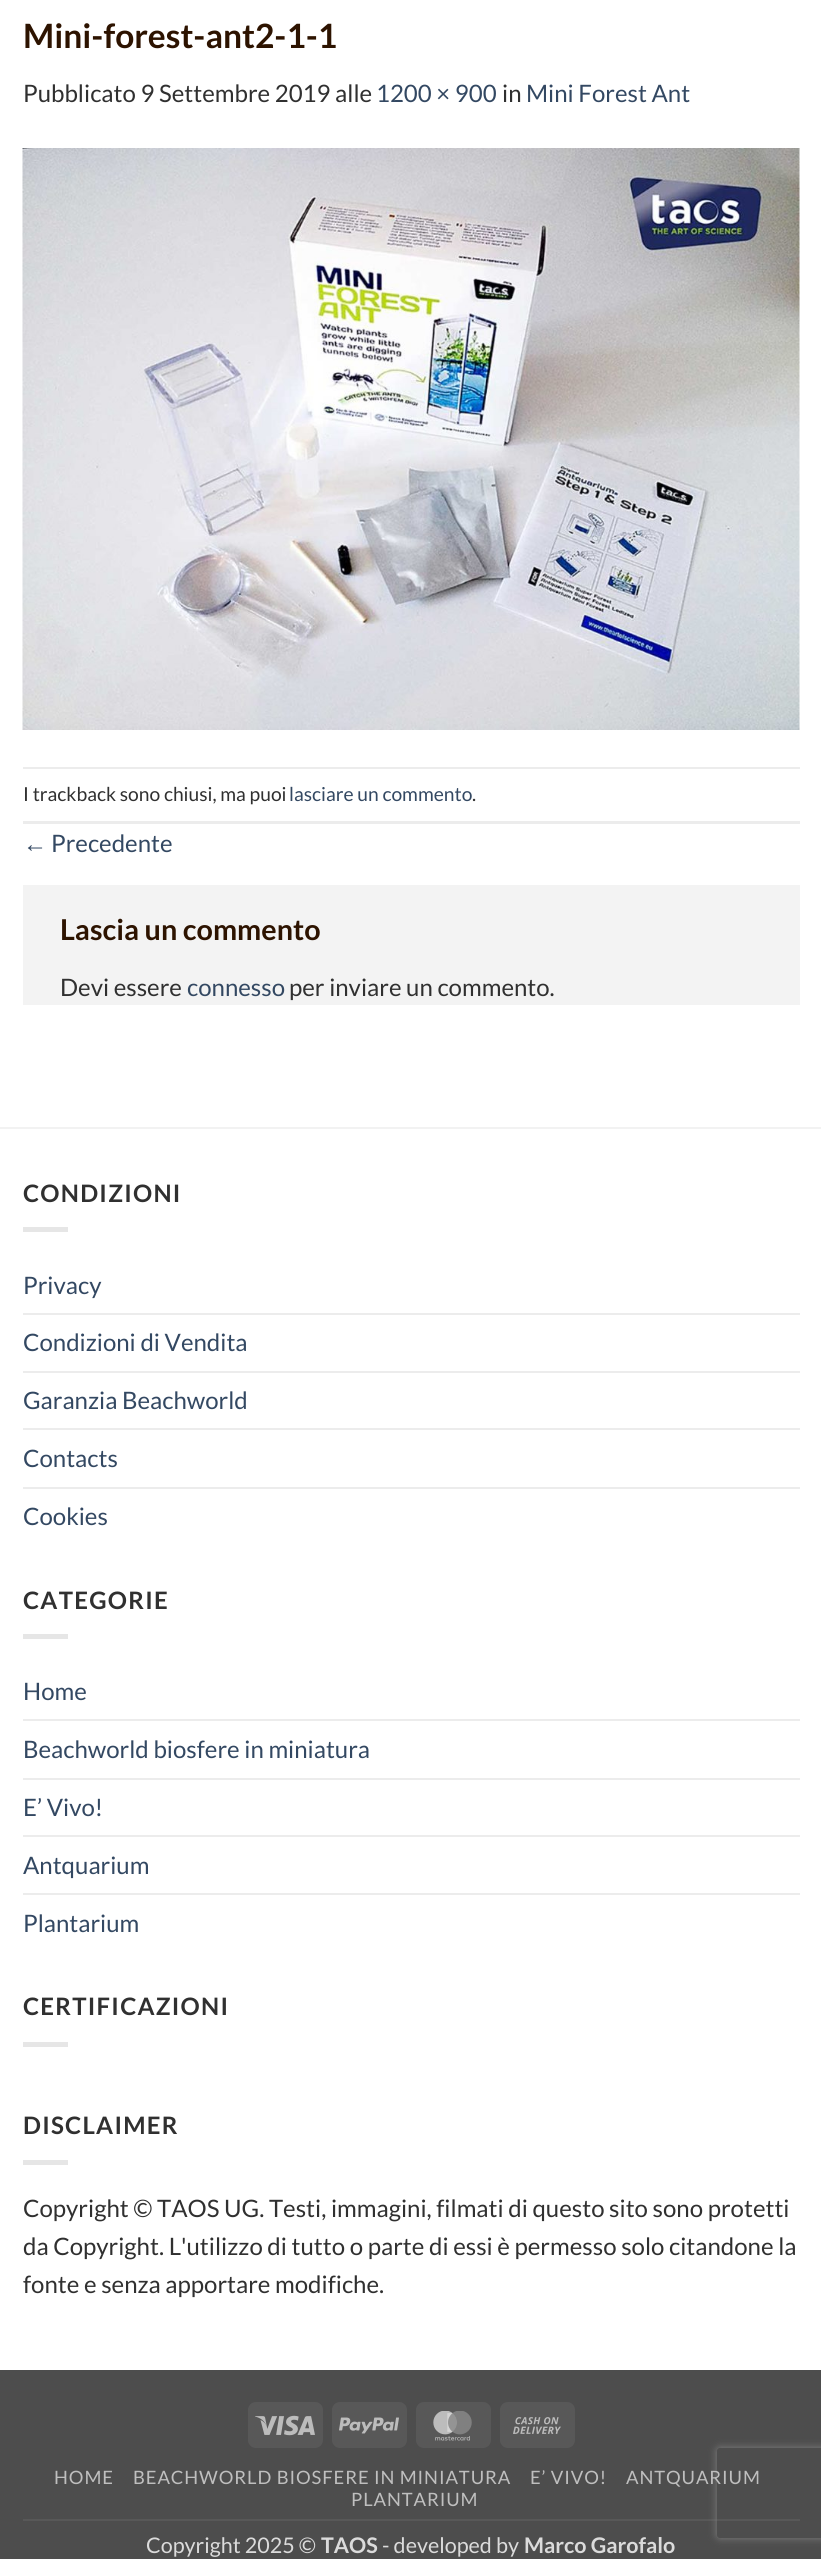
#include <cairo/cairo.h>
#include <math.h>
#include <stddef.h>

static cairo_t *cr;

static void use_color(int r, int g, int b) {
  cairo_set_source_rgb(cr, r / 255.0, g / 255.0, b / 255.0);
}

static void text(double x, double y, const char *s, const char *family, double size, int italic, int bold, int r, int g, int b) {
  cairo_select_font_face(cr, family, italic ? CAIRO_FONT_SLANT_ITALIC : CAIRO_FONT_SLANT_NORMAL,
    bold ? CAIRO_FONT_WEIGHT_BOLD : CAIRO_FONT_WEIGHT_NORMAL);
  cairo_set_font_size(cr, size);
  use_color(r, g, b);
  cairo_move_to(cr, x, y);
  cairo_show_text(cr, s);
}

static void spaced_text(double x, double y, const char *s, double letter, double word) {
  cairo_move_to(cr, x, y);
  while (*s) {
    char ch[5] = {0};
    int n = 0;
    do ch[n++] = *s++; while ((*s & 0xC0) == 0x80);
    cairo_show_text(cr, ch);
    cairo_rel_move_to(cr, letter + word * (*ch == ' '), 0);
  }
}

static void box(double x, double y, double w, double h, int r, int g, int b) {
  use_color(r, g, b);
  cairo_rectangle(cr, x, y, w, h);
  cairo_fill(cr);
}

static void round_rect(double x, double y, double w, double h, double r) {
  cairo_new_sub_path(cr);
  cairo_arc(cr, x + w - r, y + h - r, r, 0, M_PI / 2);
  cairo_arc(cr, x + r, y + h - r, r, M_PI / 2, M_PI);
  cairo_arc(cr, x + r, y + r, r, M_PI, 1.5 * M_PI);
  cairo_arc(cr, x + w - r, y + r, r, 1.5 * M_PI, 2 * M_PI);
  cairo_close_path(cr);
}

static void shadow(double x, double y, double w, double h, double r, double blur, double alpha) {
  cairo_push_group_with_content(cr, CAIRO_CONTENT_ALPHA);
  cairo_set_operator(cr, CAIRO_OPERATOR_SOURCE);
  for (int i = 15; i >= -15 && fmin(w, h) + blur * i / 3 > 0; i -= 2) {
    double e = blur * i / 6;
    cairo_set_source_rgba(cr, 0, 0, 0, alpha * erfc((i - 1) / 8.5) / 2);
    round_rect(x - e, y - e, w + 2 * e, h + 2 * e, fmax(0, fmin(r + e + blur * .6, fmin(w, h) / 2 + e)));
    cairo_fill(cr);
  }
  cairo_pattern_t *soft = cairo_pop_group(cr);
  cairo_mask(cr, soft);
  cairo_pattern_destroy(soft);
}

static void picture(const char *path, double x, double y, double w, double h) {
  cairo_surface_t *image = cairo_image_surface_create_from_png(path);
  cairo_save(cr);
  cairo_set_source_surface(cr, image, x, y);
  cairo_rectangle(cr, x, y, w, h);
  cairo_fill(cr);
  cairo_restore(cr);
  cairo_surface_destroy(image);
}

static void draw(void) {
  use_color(255, 255, 255);
  cairo_paint(cr);
  picture("img_01.png", 22, 148, 778, 582);
  box(23, 767, 777, 2, 236, 236, 236);
  box(23, 821, 777, 3, 236, 236, 236);
  box(23, 885, 777, 120, 243, 243, 243);
  box(0, 1127, 821, 2, 242, 242, 242);
  box(23, 1227, 45, 5, 230, 230, 230);
  box(23, 1313, 777, 2, 236, 236, 236);
  box(23, 1371, 777, 2, 236, 236, 236);
  box(23, 1428, 777, 2, 236, 236, 236);
  box(23, 1487, 777, 2, 236, 236, 236);
  box(23, 1634, 45, 5, 230, 230, 230);
  box(23, 1719, 777, 2, 236, 236, 236);
  box(23, 1778, 777, 2, 236, 236, 236);
  box(23, 1835, 777, 2, 236, 236, 236);
  box(23, 1893, 777, 2, 236, 236, 236);
  box(23, 2042, 45, 5, 230, 230, 230);
  box(23, 2160, 45, 5, 230, 230, 230);
  box(0, 2370, 821, 189, 77, 77, 77);
  use_color(88, 88, 88);
  round_rect(248, 2402, 75, 46, 8);
  cairo_fill(cr);
  picture("img_02.png", 255, 2415, 60, 21);
  round_rect(332, 2402, 75, 46, 8);
  cairo_fill(cr);
  picture("img_03.png", 339, 2417, 60, 17);
  round_rect(416, 2402, 75, 46, 8);
  cairo_fill(cr);
  picture("img_04.png", 433, 2411, 39, 30);
  round_rect(500, 2402, 75, 46, 8);
  cairo_fill(cr);
  picture("img_05.png", 513, 2417, 48, 17);
  box(23, 2519, 777, 2, 88, 88, 88);
  cairo_save(cr);
  cairo_set_fill_rule(cr, CAIRO_FILL_RULE_EVEN_ODD);
  cairo_new_path(cr);
  cairo_move_to(cr, 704, 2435);
  cairo_line_to(cr, 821, 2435);
  cairo_line_to(cr, 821, 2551);
  cairo_line_to(cr, 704, 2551);
  cairo_close_path(cr);
  cairo_move_to(cr, 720, 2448);
  cairo_line_to(cr, 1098, 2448);
  cairo_curve_to(cr, 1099.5, 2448, 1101, 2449.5, 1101, 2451);
  cairo_line_to(cr, 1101, 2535);
  cairo_curve_to(cr, 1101, 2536.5, 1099.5, 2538, 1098, 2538);
  cairo_line_to(cr, 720, 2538);
  cairo_curve_to(cr, 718.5, 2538, 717, 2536.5, 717, 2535);
  cairo_line_to(cr, 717, 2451);
  cairo_curve_to(cr, 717, 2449.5, 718.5, 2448, 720, 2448);
  cairo_close_path(cr);
  cairo_clip(cr);
  use_color(128, 128, 128);
  shadow(717, 2448, 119, 90, 3, 4, 1);
  cairo_restore(cr);
  text(23, 48, "Mini-forest-ant2-1-1", "Lato", 33.5, 0, 1, 45, 19, 0);
  text(23, 102, "Pubblicato 9 Settembre 2019 alle", "Lato", 24, 0, 0, 48, 48, 48);
  text(376, 102, "1200 × 900", "Lato", 24, 0, 0, 51, 72, 98);
  text(502, 102, "in", "Lato", 24, 0, 0, 48, 48, 48);
  text(526, 102, "Mini Forest Ant", "Lato", 24, 0, 0, 51, 72, 98);
  text(23, 801, "I trackback sono chiusi, ma puoi", "Lato", 19.25, 0, 0, 48, 48, 48);
  text(289, 801, "lasciare un commento", "Lato", 19.25, 0, 0, 51, 72, 98);
  text(472, 801, ".", "Lato", 19.25, 0, 0, 48, 48, 48);
  text(23, 852, "←", "Liberation Sans", 24, 0, 0, 51, 72, 98);
  text(51, 852, "Precedente", "Lato", 24, 0, 0, 51, 72, 98);
  text(60, 940, "Lascia un commento", "Lato", 28.75, 0, 1, 45, 19, 0);
  text(60, 996, "Devi essere", "Lato", 24, 0, 0, 48, 48, 48);
  text(187, 996, "connesso", "Lato", 24, 0, 0, 51, 72, 98);
  text(289, 996, "per inviare un commento.", "Lato", 24, 0, 0, 48, 48, 48);
  cairo_select_font_face(cr, "Lato", CAIRO_FONT_SLANT_NORMAL, CAIRO_FONT_WEIGHT_BOLD);
  spaced_text(23, 1202, "CONDIZIONI", 1.25, 0);
  text(23, 1294, "Privacy", "Lato", 24, 0, 0, 51, 72, 98);
  text(23, 1351, "Condizioni di Vendita", "Lato", 24, 0, 0, 51, 72, 98);
  text(23, 1409, "Garanzia Beachworld", "Lato", 24, 0, 0, 51, 72, 98);
  text(23, 1467, "Contacts", "Lato", 24, 0, 0, 51, 72, 98);
  text(23, 1525, "Cookies", "Lato", 24, 0, 0, 51, 72, 98);
  cairo_select_font_face(cr, "Lato", CAIRO_FONT_SLANT_NORMAL, CAIRO_FONT_WEIGHT_BOLD);
  use_color(48, 48, 48);
  spaced_text(23, 1609, "CATEGORIE", 1.25, 0);
  text(23, 1700, "Home", "Lato", 24, 0, 0, 51, 72, 98);
  text(23, 1758, "Beachworld biosfere in miniatura", "Lato", 24, 0, 0, 51, 72, 98);
  text(23, 1816, "E’ Vivo!", "Lato", 24, 0, 0, 51, 72, 98);
  text(23, 1874, "Antquarium", "Lato", 24, 0, 0, 51, 72, 98);
  text(23, 1932, "Plantarium", "Lato", 24, 0, 0, 51, 72, 98);
  cairo_select_font_face(cr, "Lato", CAIRO_FONT_SLANT_NORMAL, CAIRO_FONT_WEIGHT_BOLD);
  use_color(48, 48, 48);
  spaced_text(23, 2015, "CERTIFICAZIONI", 1.25, 0);
  spaced_text(23, 2134, "DISCLAIMER", 1.25, 0);
  text(23, 2217, "Copyright © TAOS UG. Testi, immagini, filmati di questo sito sono protetti", "Lato", 24, 0, 0, 48, 48, 48);
  text(23, 2255, "da Copyright. L'utilizzo di tutto o parte di essi è permesso solo citandone la", "Lato", 24, 0, 0, 48, 48, 48);
  text(23, 2293, "fonte e senza apportare modifiche.", "Lato", 24, 0, 0, 48, 48, 48);
  cairo_set_font_size(cr, 18.4);
  use_color(191, 191, 191);
  spaced_text(54, 2484, "HOME", 0.9, 0);
  spaced_text(133, 2484, "BEACHWORLD BIOSFERE IN MINIATURA", 0.9, 0);
  spaced_text(530, 2484, "E’ VIVO!", 0.9, 0);
  spaced_text(626, 2484, "ANTQUARIUM", 0.9, 0);
  spaced_text(351, 2506, "PLANTARIUM", 0.9, 0);
  text(146, 2553, "Copyright 2025 ©", "Lato", 21.5, 0, 0, 219, 219, 219);
  text(321, 2553, "TAOS", "Lato", 21.5, 0, 1, 219, 219, 219);
  text(382, 2553, "- developed by", "Lato", 21.5, 0, 0, 219, 219, 219);
  text(524, 2553, "Marco Garofalo", "Lato", 21.5, 0, 1, 219, 219, 219);
}

int main(void) {
  cairo_surface_t *surface = cairo_image_surface_create(CAIRO_FORMAT_RGB24, 821, 2559);
  cr = cairo_create(surface);
  cairo_font_options_t *options = cairo_font_options_create();
  cairo_font_options_set_hint_metrics(options, CAIRO_HINT_METRICS_OFF);
  cairo_font_options_set_hint_style(options, CAIRO_HINT_STYLE_NONE);
  cairo_set_font_options(cr, options);
  cairo_set_miter_limit(cr, 4);
  draw();
  cairo_surface_write_to_png(surface, "out.png");
  cairo_font_options_destroy(options);
  cairo_destroy(cr);
  cairo_surface_destroy(surface);
  return 0;
}
